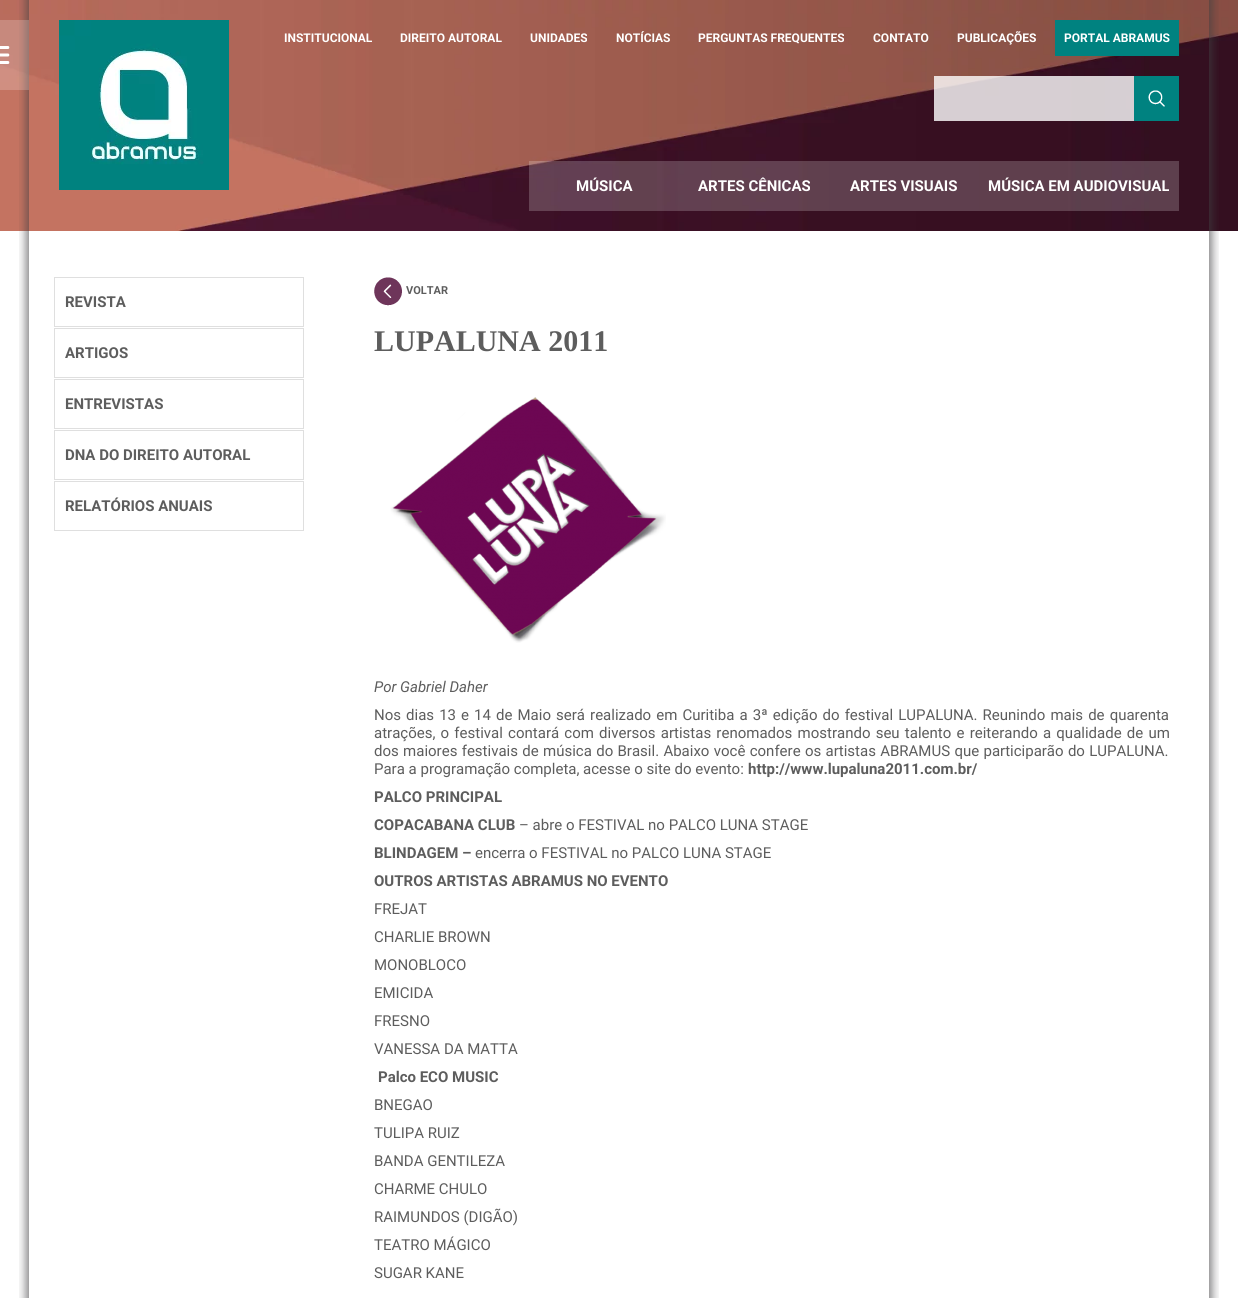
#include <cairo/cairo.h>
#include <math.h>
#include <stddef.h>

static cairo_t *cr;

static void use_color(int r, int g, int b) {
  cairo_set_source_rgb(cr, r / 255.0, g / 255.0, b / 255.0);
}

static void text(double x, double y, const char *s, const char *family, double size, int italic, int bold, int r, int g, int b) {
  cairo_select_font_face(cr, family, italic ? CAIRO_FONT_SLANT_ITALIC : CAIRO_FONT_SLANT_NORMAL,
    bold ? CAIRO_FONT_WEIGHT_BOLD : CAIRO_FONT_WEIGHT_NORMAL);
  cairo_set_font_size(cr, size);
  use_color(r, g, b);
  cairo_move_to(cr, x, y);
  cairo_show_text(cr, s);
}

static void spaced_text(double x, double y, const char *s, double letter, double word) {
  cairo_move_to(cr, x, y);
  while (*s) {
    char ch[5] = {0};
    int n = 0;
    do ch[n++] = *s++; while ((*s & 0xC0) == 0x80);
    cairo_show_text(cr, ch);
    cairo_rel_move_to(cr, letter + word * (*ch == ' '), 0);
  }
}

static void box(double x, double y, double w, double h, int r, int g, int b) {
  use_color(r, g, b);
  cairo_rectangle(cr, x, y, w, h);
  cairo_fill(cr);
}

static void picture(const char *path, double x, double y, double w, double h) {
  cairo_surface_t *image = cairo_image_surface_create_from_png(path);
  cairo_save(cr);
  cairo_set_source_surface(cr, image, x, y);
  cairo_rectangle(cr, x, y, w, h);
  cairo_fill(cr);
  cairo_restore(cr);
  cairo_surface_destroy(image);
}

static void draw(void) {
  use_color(255, 255, 255);
  cairo_paint(cr);
  picture("img_01.png", 0, 0, 1238, 231);
  picture("img_02.png", 19, 0, 1200, 231);
  picture("img_03.png", 0, 20, 29, 70);
  picture("img_04.png", 59, 20, 170, 170);
  box(1055, 20, 124, 36, 0, 130, 128);
  cairo_set_source_rgba(cr, 1, 1, 1, 0.8);
  cairo_rectangle(cr, 934, 76, 200, 45);
  cairo_fill(cr);
  picture("img_05.png", 1134, 76, 45, 45);
  cairo_set_source_rgba(cr, 1, 1, 1, 0.2);
  cairo_rectangle(cr, 529, 161, 150, 50);
  cairo_fill(cr);
  cairo_rectangle(cr, 679, 161, 150, 50);
  cairo_fill(cr);
  box(829, 161, 150, 50, 95, 63, 78);
  cairo_set_source_rgba(cr, 1, 1, 1, 0.2);
  cairo_rectangle(cr, 979, 161, 200, 50);
  cairo_fill(cr);
  picture("img_06.png", 19, 231, 1200, 1067);
  cairo_rectangle(cr, 54.5, 277.5, 249, 49);
  use_color(223, 223, 223);
  cairo_set_line_width(cr, 1);
  cairo_stroke(cr);
  cairo_rectangle(cr, 54.5, 328.5, 249, 49);
  cairo_stroke(cr);
  cairo_rectangle(cr, 54.5, 379.5, 249, 49);
  cairo_stroke(cr);
  cairo_rectangle(cr, 54.5, 430.5, 249, 49);
  cairo_stroke(cr);
  cairo_rectangle(cr, 54.5, 481.5, 249, 49);
  cairo_stroke(cr);
  picture("img_07.png", 374, 277, 28, 29);
  picture("img_08.png", 390, 397, 276, 246);
  text(284, 42, "INSTITUCIONAL", "Roboto", 12, 0, 1, 255, 255, 255);
  text(400, 42, "DIREITO AUTORAL", "Roboto", 12, 0, 1, 255, 255, 255);
  text(530, 42, "UNIDADES", "Roboto", 12, 0, 1, 255, 255, 255);
  text(616, 42, "NOTÍCIAS", "Roboto", 12, 0, 1, 255, 255, 255);
  text(698, 42, "PERGUNTAS FREQUENTES", "Roboto", 12, 0, 1, 255, 255, 255);
  text(873, 42, "CONTATO", "Roboto", 12, 0, 1, 255, 255, 255);
  text(957, 42, "PUBLICAÇÕES", "Roboto", 12, 0, 1, 255, 255, 255);
  text(1064, 42, "PORTAL ABRAMUS", "Roboto", 12, 0, 1, 255, 255, 255);
  text(576, 191, "MÚSICA", "Roboto", 15, 0, 1, 255, 255, 255);
  text(698, 191, "ARTES CÊNICAS", "Roboto", 15, 0, 1, 255, 255, 255);
  text(850, 191, "ARTES VISUAIS", "Roboto", 15, 0, 1, 255, 255, 255);
  text(988, 191, "MÚSICA EM AUDIOVISUAL", "Roboto", 15, 0, 1, 255, 255, 255);
  text(65, 307, "REVISTA", "Roboto", 15, 0, 1, 93, 93, 93);
  text(65, 358, "ARTIGOS", "Roboto", 15, 0, 1, 93, 93, 93);
  text(65, 409, "ENTREVISTAS", "Roboto", 15, 0, 1, 93, 93, 93);
  text(65, 460, "DNA DO DIREITO AUTORAL", "Roboto", 15, 0, 1, 93, 93, 93);
  text(65, 511, "RELATÓRIOS ANUAIS", "Roboto", 15, 0, 1, 93, 93, 93);
  text(406, 294, "VOLTAR", "Roboto", 11, 0, 1, 93, 93, 93);
  text(374, 351, "LUPALUNA 2011", "Liberation Serif", 30, 0, 1, 93, 93, 93);
  text(374, 692, "Por Gabriel Daher", "Roboto", 15, 1, 0, 93, 93, 93);
  cairo_select_font_face(cr, "Roboto", CAIRO_FONT_SLANT_NORMAL, CAIRO_FONT_WEIGHT_NORMAL);
  spaced_text(374, 720, "Nos dias 13 e 14 de Maio será realizado em Curitiba a 3ª edição do festival LUPALUNA. Reunindo mais de quarenta", 0, 1.35);
  spaced_text(374, 738, "atrações, o festival contará com diversos artistas renomados mostrando seu talento e reiterando a qualidade de um", 0, 1.5);
  spaced_text(374, 756, "dos maiores festivais de música do Brasil. Abaixo você confere os artistas ABRAMUS que participarão do LUPALUNA.", 0, 0.6);
  text(374, 774, "Para a programação completa, acesse o site do evento:", "Roboto", 15, 0, 0, 93, 93, 93);
  text(748, 774, "http://www.lupaluna2011.com.br/", "Roboto", 15, 0, 1, 93, 93, 93);
  text(374, 802, "PALCO PRINCIPAL", "Roboto", 15, 0, 1, 93, 93, 93);
  text(374, 830, "COPACABANA CLUB", "Roboto", 15, 0, 1, 93, 93, 93);
  text(519, 830, "– abre o FESTIVAL no PALCO LUNA STAGE", "Roboto", 15, 0, 0, 93, 93, 93);
  text(374, 858, "BLINDAGEM –", "Roboto", 15, 0, 1, 93, 93, 93);
  text(475, 858, "encerra o FESTIVAL no PALCO LUNA STAGE", "Roboto", 15, 0, 0, 93, 93, 93);
  text(374, 886, "OUTROS ARTISTAS ABRAMUS NO EVENTO", "Roboto", 15, 0, 1, 93, 93, 93);
  text(374, 914, "FREJAT", "Roboto", 15, 0, 0, 93, 93, 93);
  text(374, 942, "CHARLIE BROWN", "Roboto", 15, 0, 0, 93, 93, 93);
  text(374, 970, "MONOBLOCO", "Roboto", 15, 0, 0, 93, 93, 93);
  text(374, 998, "EMICIDA", "Roboto", 15, 0, 0, 93, 93, 93);
  text(374, 1026, "FRESNO", "Roboto", 15, 0, 0, 93, 93, 93);
  text(374, 1054, "VANESSA DA MATTA", "Roboto", 15, 0, 0, 93, 93, 93);
  text(378, 1082, "Palco ECO MUSIC", "Roboto", 15, 0, 1, 93, 93, 93);
  text(374, 1110, "BNEGAO", "Roboto", 15, 0, 0, 93, 93, 93);
  text(374, 1138, "TULIPA RUIZ", "Roboto", 15, 0, 0, 93, 93, 93);
  text(374, 1166, "BANDA GENTILEZA", "Roboto", 15, 0, 0, 93, 93, 93);
  text(374, 1194, "CHARME CHULO", "Roboto", 15, 0, 0, 93, 93, 93);
  text(374, 1222, "RAIMUNDOS (DIGÃO)", "Roboto", 15, 0, 0, 93, 93, 93);
  text(374, 1250, "TEATRO MÁGICO", "Roboto", 15, 0, 0, 93, 93, 93);
  text(374, 1278, "SUGAR KANE", "Roboto", 15, 0, 0, 93, 93, 93);
}

int main(void) {
  cairo_surface_t *surface = cairo_image_surface_create(CAIRO_FORMAT_RGB24, 1238, 1298);
  cr = cairo_create(surface);
  cairo_font_options_t *options = cairo_font_options_create();
  cairo_font_options_set_hint_metrics(options, CAIRO_HINT_METRICS_OFF);
  cairo_font_options_set_hint_style(options, CAIRO_HINT_STYLE_NONE);
  cairo_set_font_options(cr, options);
  cairo_set_miter_limit(cr, 4);
  draw();
  cairo_surface_write_to_png(surface, "out.png");
  cairo_font_options_destroy(options);
  cairo_destroy(cr);
  cairo_surface_destroy(surface);
  return 0;
}
